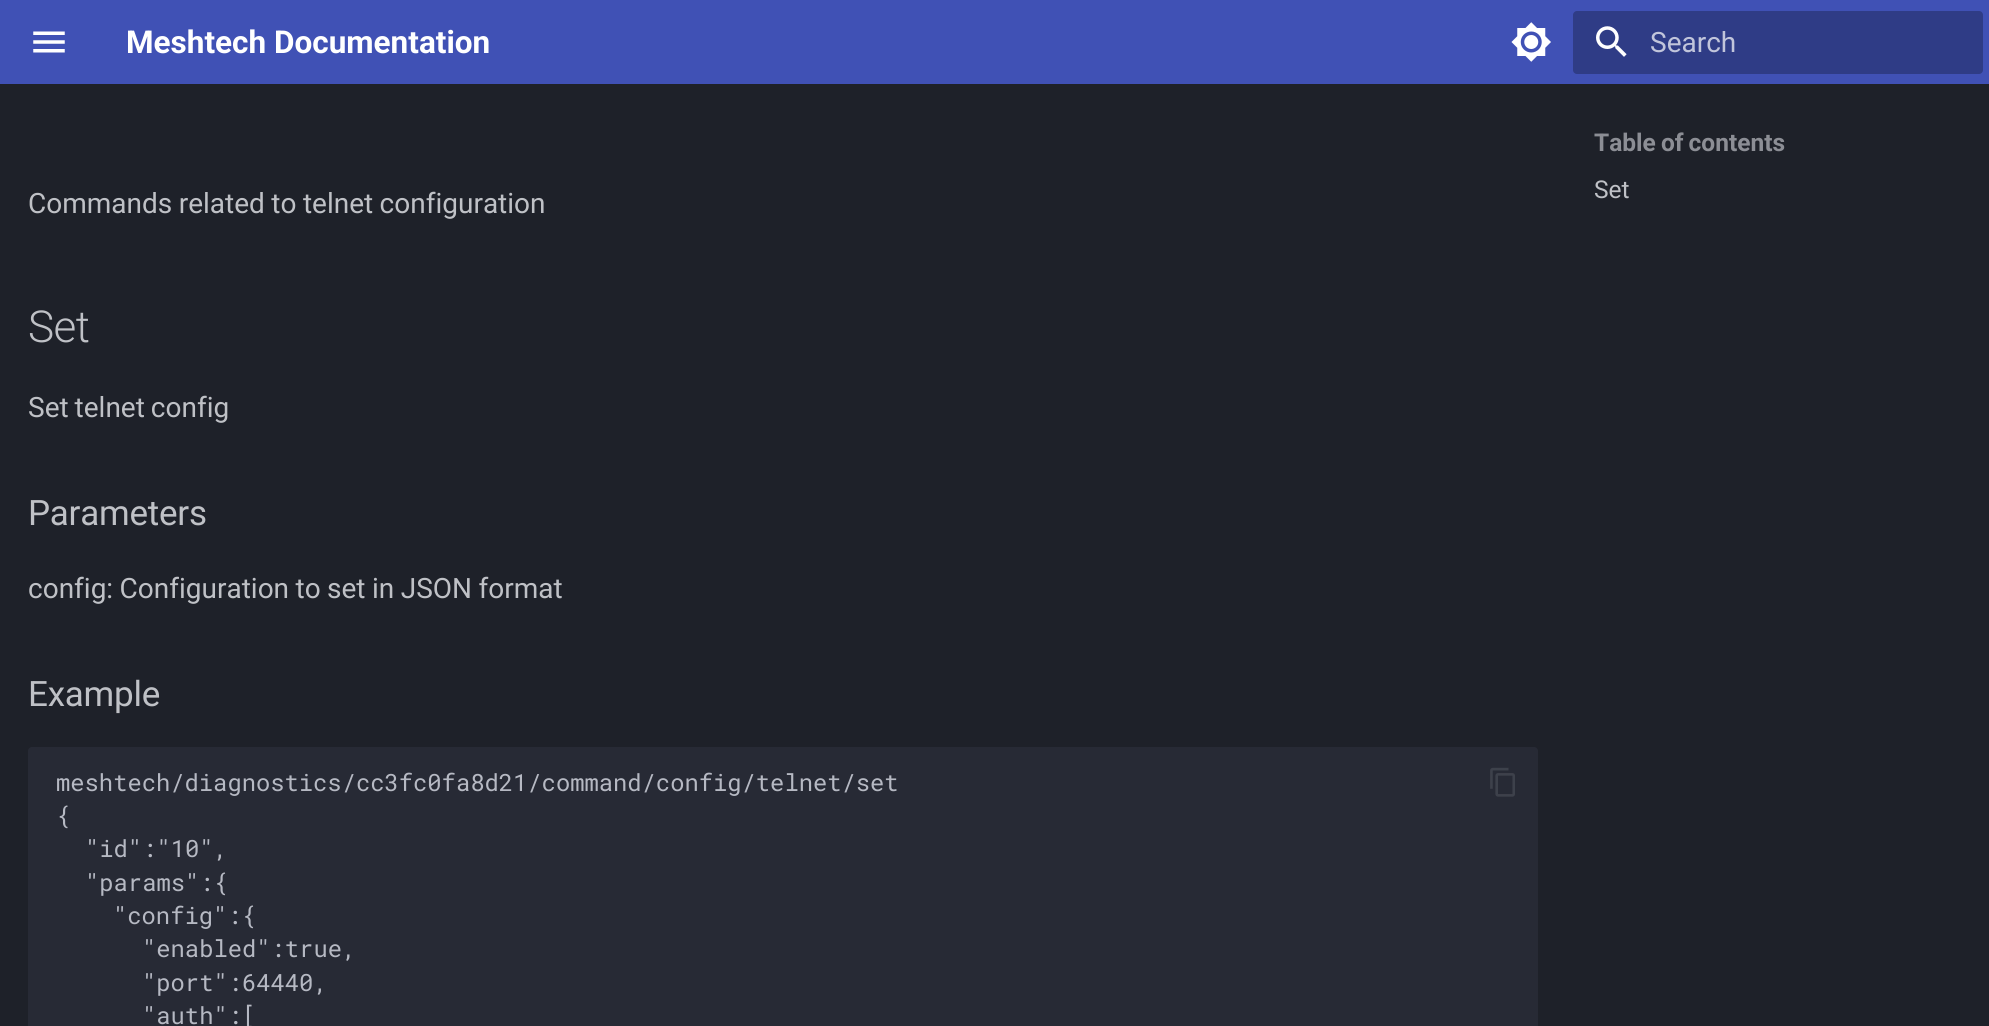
#include <cairo/cairo.h>
#include <math.h>
#include <stddef.h>

static cairo_t *cr;

static void use_color(int r, int g, int b) {
  cairo_set_source_rgb(cr, r / 255.0, g / 255.0, b / 255.0);
}

static void text(double x, double y, const char *s, const char *family, double size, int italic, int bold, int r, int g, int b) {
  cairo_select_font_face(cr, family, italic ? CAIRO_FONT_SLANT_ITALIC : CAIRO_FONT_SLANT_NORMAL,
    bold ? CAIRO_FONT_WEIGHT_BOLD : CAIRO_FONT_WEIGHT_NORMAL);
  cairo_set_font_size(cr, size);
  use_color(r, g, b);
  cairo_move_to(cr, x, y);
  cairo_show_text(cr, s);
}

static void spaced_text(double x, double y, const char *s, double letter, double word) {
  cairo_move_to(cr, x, y);
  while (*s) {
    char ch[5] = {0};
    int n = 0;
    do ch[n++] = *s++; while ((*s & 0xC0) == 0x80);
    cairo_show_text(cr, ch);
    cairo_rel_move_to(cr, letter + word * (*ch == ' '), 0);
  }
}

static void box(double x, double y, double w, double h, int r, int g, int b) {
  use_color(r, g, b);
  cairo_rectangle(cr, x, y, w, h);
  cairo_fill(cr);
}

static void round_rect(double x, double y, double w, double h, double r) {
  cairo_new_sub_path(cr);
  cairo_arc(cr, x + w - r, y + h - r, r, 0, M_PI / 2);
  cairo_arc(cr, x + r, y + h - r, r, M_PI / 2, M_PI);
  cairo_arc(cr, x + r, y + r, r, M_PI, 1.5 * M_PI);
  cairo_arc(cr, x + w - r, y + r, r, 1.5 * M_PI, 2 * M_PI);
  cairo_close_path(cr);
}

static void shadow(double x, double y, double w, double h, double r, double blur, double alpha) {
  cairo_push_group_with_content(cr, CAIRO_CONTENT_ALPHA);
  cairo_set_operator(cr, CAIRO_OPERATOR_SOURCE);
  for (int i = 15; i >= -15 && fmin(w, h) + blur * i / 3 > 0; i -= 2) {
    double e = blur * i / 6;
    cairo_set_source_rgba(cr, 0, 0, 0, alpha * erfc((i - 1) / 8.5) / 2);
    round_rect(x - e, y - e, w + 2 * e, h + 2 * e, fmax(0, fmin(r + e + blur * .6, fmin(w, h) / 2 + e)));
    cairo_fill(cr);
  }
  cairo_pattern_t *soft = cairo_pop_group(cr);
  cairo_mask(cr, soft);
  cairo_pattern_destroy(soft);
}

static void picture(const char *path, double x, double y, double w, double h) {
  cairo_surface_t *image = cairo_image_surface_create_from_png(path);
  cairo_save(cr);
  cairo_set_source_surface(cr, image, x, y);
  cairo_rectangle(cr, x, y, w, h);
  cairo_fill(cr);
  cairo_restore(cr);
  cairo_surface_destroy(image);
}

static void draw(void) {
  use_color(30, 33, 41);
  cairo_paint(cr);
  box(0, 0, 1989, 84, 64, 81, 181);
  picture("img_01.png", 33, 31, 32, 22);
  picture("img_02.png", 1511, 22, 40, 40);
  use_color(47, 60, 134);
  round_rect(1573, 11, 410, 63, 4);
  cairo_fill(cr);
  picture("img_03.png", 1596, 26, 31, 31);
  cairo_save(cr);
  cairo_rectangle(cr, 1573, 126, 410, 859);
  cairo_clip(cr);
  cairo_set_fill_rule(cr, CAIRO_FILL_RULE_EVEN_ODD);
  cairo_new_path(cr);
  cairo_move_to(cr, 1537, 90);
  cairo_line_to(cr, 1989, 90);
  cairo_line_to(cr, 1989, 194);
  cairo_line_to(cr, 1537, 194);
  cairo_close_path(cr);
  cairo_move_to(cr, 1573, 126);
  cairo_line_to(cr, 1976, 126);
  cairo_line_to(cr, 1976, 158);
  cairo_line_to(cr, 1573, 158);
  cairo_close_path(cr);
  cairo_clip(cr);
  use_color(30, 33, 41);
  shadow(1559, 112, 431, 60, 0, 7, 1);
  cairo_restore(cr);
  use_color(39, 42, 53);
  round_rect(28, 747, 1510, 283, 4);
  cairo_fill(cr);
  picture("img_04.png", 1490, 767, 25, 30);
  text(126, 53, "Meshtech Documentation", "Roboto", 31.5, 0, 1, 255, 255, 255);
  text(1650, 52, "Search", "Roboto", 28, 0, 0, 193, 197, 219);
  cairo_select_font_face(cr, "Roboto", CAIRO_FONT_SLANT_NORMAL, CAIRO_FONT_WEIGHT_BOLD);
  cairo_set_font_size(cr, 24.5);
  use_color(140, 142, 149);
  spaced_text(1594, 151, "Table of contents", 0, -1);
  text(1594, 198, "Set", "Roboto", 24.5, 0, 0, 191, 193, 198);
  cairo_set_font_size(cr, 28);
  spaced_text(28, 213, "Commands related to telnet configuration", 0, -0.5);
  cairo_select_font_face(cr, "Roboto Light", CAIRO_FONT_SLANT_NORMAL, CAIRO_FONT_WEIGHT_NORMAL);
  cairo_set_font_size(cr, 44);
  spaced_text(28, 342, "Set", -0.5, 0);
  cairo_select_font_face(cr, "Roboto", CAIRO_FONT_SLANT_NORMAL, CAIRO_FONT_WEIGHT_NORMAL);
  cairo_set_font_size(cr, 28);
  spaced_text(28, 417, "Set telnet config", 0, -1);
  cairo_set_font_size(cr, 35);
  spaced_text(28, 525, "Parameters", -0.25, 0);
  cairo_set_font_size(cr, 28);
  spaced_text(28, 598, "config: Configuration to set in JSON format", 0, -0.5);
  cairo_set_font_size(cr, 35);
  spaced_text(28, 706, "Example", -0.25, 0);
  text(56, 791, "meshtech/diagnostics/cc3fc0fa8d21/command/config/telnet/set", "Roboto Mono", 23.8, 0, 0, 182, 185, 195);
  text(56, 824, "{", "Roboto Mono", 23.8, 0, 0, 182, 185, 195);
  text(85, 857, "\"id\":\"10\",", "Roboto Mono", 23.8, 0, 0, 182, 185, 195);
  text(85, 891, "\"params\":{", "Roboto Mono", 23.8, 0, 0, 182, 185, 195);
  text(113, 924, "\"config\":{", "Roboto Mono", 23.8, 0, 0, 182, 185, 195);
  text(142, 957, "\"enabled\":true,", "Roboto Mono", 23.8, 0, 0, 182, 185, 195);
  text(142, 991, "\"port\":64440,", "Roboto Mono", 23.8, 0, 0, 182, 185, 195);
  text(142, 1024, "\"auth\":[", "Roboto Mono", 23.8, 0, 0, 182, 185, 195);
}

int main(void) {
  cairo_surface_t *surface = cairo_image_surface_create(CAIRO_FORMAT_RGB24, 1989, 1026);
  cr = cairo_create(surface);
  cairo_font_options_t *options = cairo_font_options_create();
  cairo_font_options_set_hint_metrics(options, CAIRO_HINT_METRICS_OFF);
  cairo_font_options_set_hint_style(options, CAIRO_HINT_STYLE_NONE);
  cairo_set_font_options(cr, options);
  cairo_set_miter_limit(cr, 4);
  draw();
  cairo_surface_write_to_png(surface, "out.png");
  cairo_font_options_destroy(options);
  cairo_destroy(cr);
  cairo_surface_destroy(surface);
  return 0;
}
